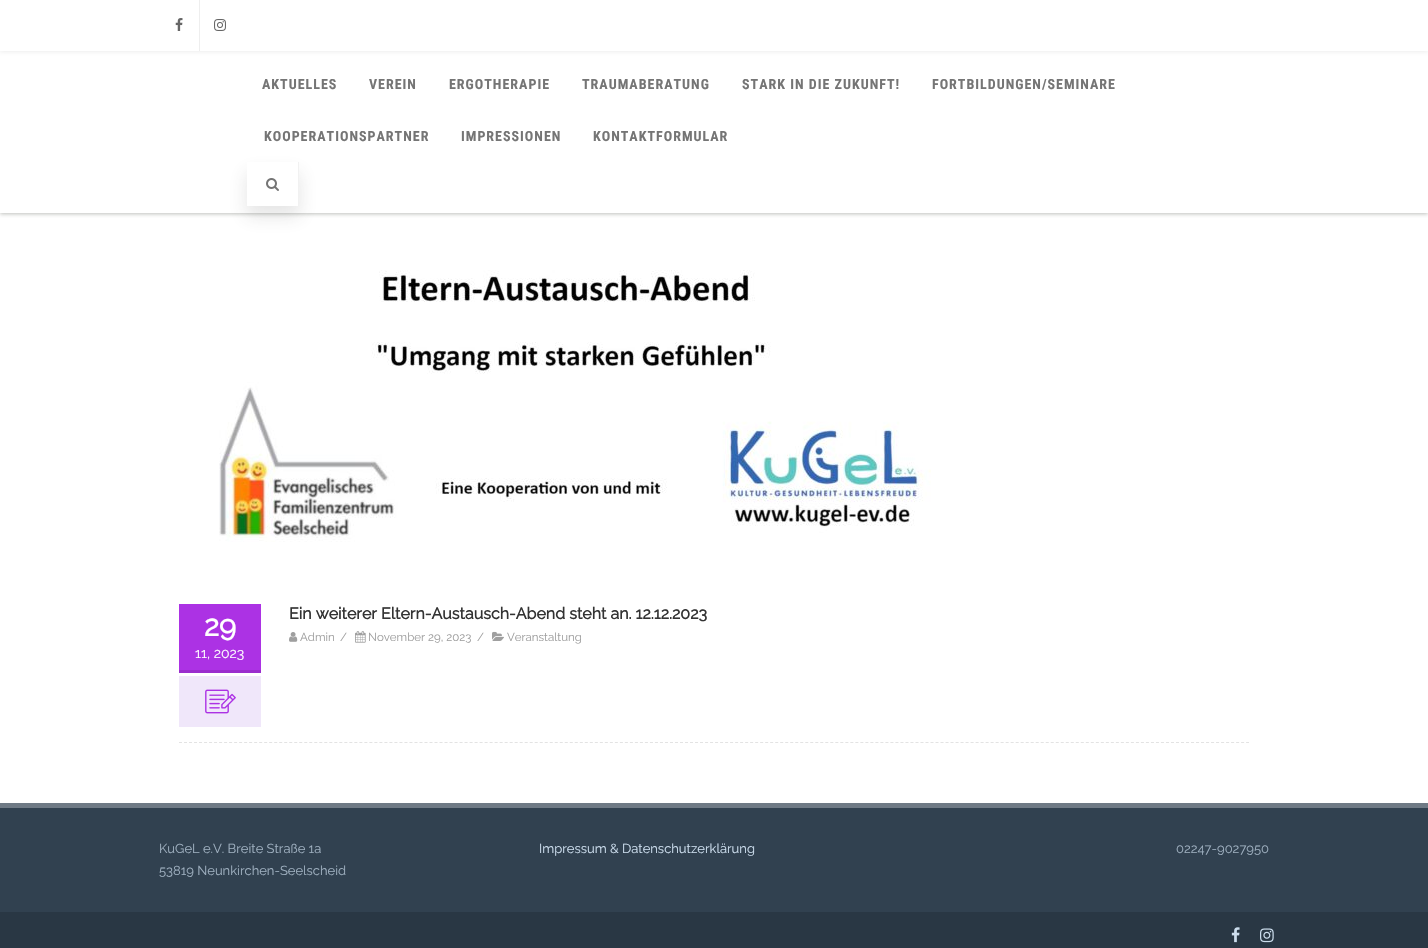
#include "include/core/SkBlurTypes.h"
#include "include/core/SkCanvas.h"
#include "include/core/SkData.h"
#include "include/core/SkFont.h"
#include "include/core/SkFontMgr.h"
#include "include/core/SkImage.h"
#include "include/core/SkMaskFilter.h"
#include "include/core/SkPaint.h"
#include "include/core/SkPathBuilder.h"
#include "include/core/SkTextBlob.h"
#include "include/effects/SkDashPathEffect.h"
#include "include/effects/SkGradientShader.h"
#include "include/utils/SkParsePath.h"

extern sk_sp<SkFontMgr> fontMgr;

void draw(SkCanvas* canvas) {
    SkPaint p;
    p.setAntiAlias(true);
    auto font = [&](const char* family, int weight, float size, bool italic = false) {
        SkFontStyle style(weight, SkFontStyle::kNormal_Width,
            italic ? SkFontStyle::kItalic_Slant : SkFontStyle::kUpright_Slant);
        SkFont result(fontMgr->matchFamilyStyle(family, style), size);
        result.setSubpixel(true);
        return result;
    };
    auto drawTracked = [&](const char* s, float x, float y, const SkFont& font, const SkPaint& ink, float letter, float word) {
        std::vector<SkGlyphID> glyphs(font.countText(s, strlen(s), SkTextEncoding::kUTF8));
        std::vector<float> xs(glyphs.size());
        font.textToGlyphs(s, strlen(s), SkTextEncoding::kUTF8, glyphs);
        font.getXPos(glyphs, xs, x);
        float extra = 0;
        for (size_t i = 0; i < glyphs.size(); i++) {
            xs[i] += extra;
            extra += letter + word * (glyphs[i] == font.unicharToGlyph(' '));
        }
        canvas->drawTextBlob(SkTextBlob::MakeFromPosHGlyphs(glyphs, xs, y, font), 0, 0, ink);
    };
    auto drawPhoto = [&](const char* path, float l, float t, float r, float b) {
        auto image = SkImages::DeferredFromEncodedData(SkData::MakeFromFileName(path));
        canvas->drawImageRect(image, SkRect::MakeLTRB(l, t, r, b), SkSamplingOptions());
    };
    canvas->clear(0xFFFFFFFF);
    canvas->save();
    canvas->clipRect(SkRect::MakeLTRB(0, 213, 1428, 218));
    p.setColor(0xBFA7A9A4);
    p.setMaskFilter(SkMaskFilter::MakeBlur(kNormal_SkBlurStyle, 2));
    canvas->drawRect(SkRect::MakeLTRB(0, 1, 1428, 214), p);
    p.setMaskFilter(nullptr);
    canvas->restore();
    canvas->save();
    canvas->clipRect(SkRect::MakeLTRB(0, 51, 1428, 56));
    p.setColor(0xFFEEEEEE);
    p.setMaskFilter(SkMaskFilter::MakeBlur(kNormal_SkBlurStyle, 2));
    canvas->drawRect(SkRect::MakeLTRB(0, 1, 1428, 52), p);
    p.setMaskFilter(nullptr);
    canvas->restore();
    drawPhoto("media/1.png", 175, 18, 183, 31);
    canvas->drawRect(SkRect::MakeLTRB(199, 0, 200, 51), p);
    drawPhoto("media/2.png", 214, 19, 226, 31);
    auto font1 = font("Roboto Condensed", 700, 14);
    p.setColor(0xFF757575);
    {
        const struct { const char* s; float x, y; } items[] = {
            {"AKTUELLES", 262, 89},
            {"VEREIN", 369, 89},
            {"ERGOTHERAPIE", 449, 89},
            {"TRAUMABERATUNG", 582, 89},
            {"STARK IN DIE ZUKUNFT!", 742, 89},
            {"FORTBILDUNGEN/SEMINARE", 932, 89},
            {"KOOPERATIONSPARTNER", 264, 141},
            {"IMPRESSIONEN", 461, 141},
            {"KONTAKTFORMULAR", 593, 141},
        };
        for (auto [s, x, y] : items) {
            drawTracked(s, x, y, font1, p, 1, 0);
        }
    }
    canvas->save();
    canvas->clipPath(SkPathBuilder(SkPathFillType::kEvenOdd).moveTo(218, 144).lineTo(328, 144).lineTo(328, 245).lineTo(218, 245).close().moveTo(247, 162).lineTo(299, 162).lineTo(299, 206).lineTo(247, 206).close().detach(), true);
    p.setColor(0x21404040);
    p.setMaskFilter(SkMaskFilter::MakeBlur(kNormal_SkBlurStyle, 9));
    canvas->drawRect(SkRect::MakeLTRB(246, 172, 300, 217), p);
    p.setMaskFilter(nullptr);
    canvas->restore();
    p.setColor(0xFFF1F1F1);
    canvas->drawRect(SkRect::MakeLTRB(298, 162, 299, 206), p);
    drawPhoto("media/3.png", 266, 178, 279, 191);
    p.setStyle(SkPaint::kStroke_Style);
    p.setStrokeWidth(1);
    p.setColor(0xFFE3E3E3);
    p.setPathEffect(SkDashPathEffect::Make({{3, 2.01f}}, 0));
    canvas->drawPath(SkPathBuilder().moveTo(179, 742.5f).lineTo(1249, 742.5f).detach(), p);
    p.setPathEffect(nullptr);
    drawPhoto("media/4.png", 219, 270, 931, 542);
    p.setStyle(SkPaint::kFill_Style);
    p.setColor(0xFFAC32E4);
    canvas->drawRect(SkRect::MakeLTRB(179, 604, 261, 670), p);
    p.setColor(0xFF9B2DCD);
    canvas->drawRect(SkRect::MakeLTRB(179, 670, 261, 673), p);
    auto font2 = font("Raleway", 700, 29);
    p.setColor(0xFFFFFFFF);
    canvas->drawString("29", 204, 636, font2, p);
    auto font3 = font("Raleway", 400, 14);
    canvas->drawString("11, 2023", 195, 658, font3, p);
    p.setColor(0xFFF0E7FA);
    canvas->drawRect(SkRect::MakeLTRB(179, 676, 261, 727), p);
    drawPhoto("media/5.png", 205, 689, 236, 714);
    auto font4 = font("Raleway", 700, 16);
    p.setColor(0xFF333333);
    canvas->drawString("Ein weiterer Eltern-Austausch-Abend steht an. 12.12.2023", 289, 619, font4, p);
    drawPhoto("media/6.png", 289, 632, 298, 642);
    auto font5 = font("Raleway", 400, 11.5f);
    p.setColor(0xFF9F9F9F);
    canvas->drawString("Admin", 300, 641, font5, p);
    canvas->drawString("/", 340, 641, font5, p);
    drawPhoto("media/7.png", 355, 631, 366, 643);
    canvas->drawString("November 29, 2023", 368, 641, font5, p);
    canvas->drawString("/", 477, 641, font5, p);
    drawPhoto("media/8.png", 492, 631, 504, 641);
    canvas->drawString("Veranstaltung", 507, 641, font5, p);
    p.setColor(0xFF314150);
    canvas->drawRect(SkRect::MakeLTRB(0, 808, 1428, 912), p);
    p.setColor(0xFF6F7A85);
    canvas->drawRect(SkRect::MakeLTRB(0, 803, 1428, 808), p);
    auto font6 = font("Raleway", 400, 13);
    p.setColor(0xFF9EAFBF);
    canvas->drawString("KuGeL e.V. Breite Straße 1a", 159, 853, font6, p);
    canvas->drawString("53819 Neunkirchen-Seelscheid", 159, 875, font6, p);
    p.setColor(0xFFCDDEEE);
    canvas->drawString("Impressum & Datenschutzerklärung", 539, 853, font6, p);
    p.setColor(0xFF9EAFBF);
    canvas->drawString("02247-9027950", 1176, 853, font6, p);
    p.setColor(0xFF293744);
    canvas->drawRect(SkRect::MakeLTRB(0, 912, 1428, 948), p);
    drawPhoto("media/9.png", 1231, 927, 1240, 943);
    drawPhoto("media/10.png", 1260, 928, 1274, 943);
}
